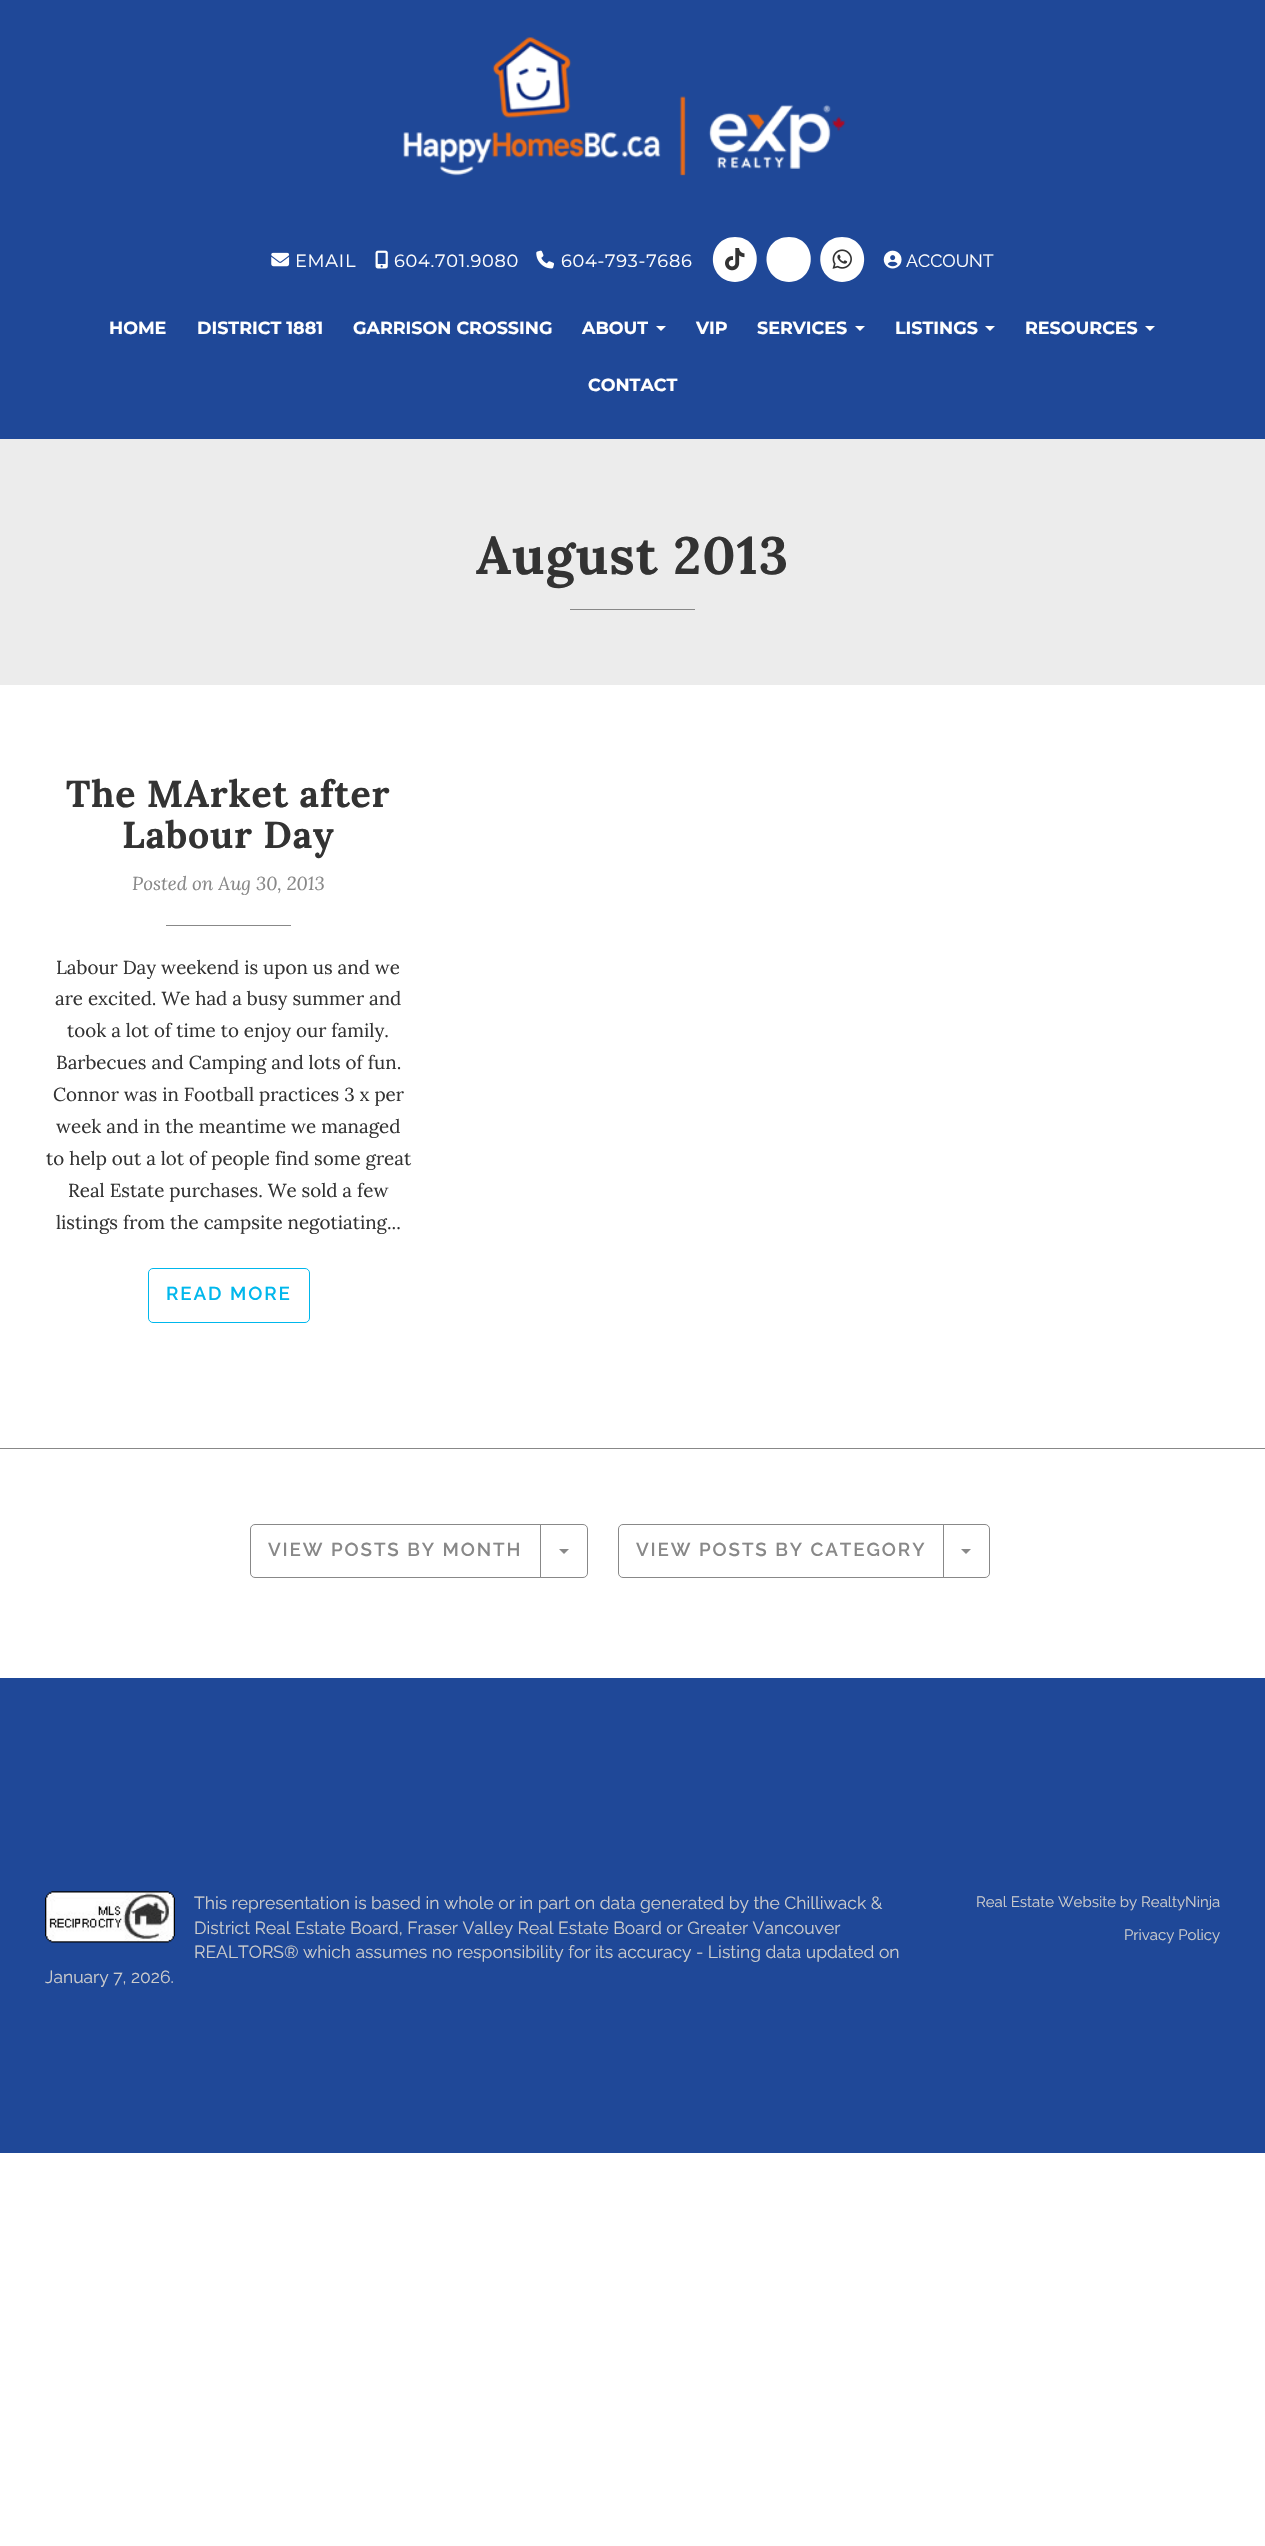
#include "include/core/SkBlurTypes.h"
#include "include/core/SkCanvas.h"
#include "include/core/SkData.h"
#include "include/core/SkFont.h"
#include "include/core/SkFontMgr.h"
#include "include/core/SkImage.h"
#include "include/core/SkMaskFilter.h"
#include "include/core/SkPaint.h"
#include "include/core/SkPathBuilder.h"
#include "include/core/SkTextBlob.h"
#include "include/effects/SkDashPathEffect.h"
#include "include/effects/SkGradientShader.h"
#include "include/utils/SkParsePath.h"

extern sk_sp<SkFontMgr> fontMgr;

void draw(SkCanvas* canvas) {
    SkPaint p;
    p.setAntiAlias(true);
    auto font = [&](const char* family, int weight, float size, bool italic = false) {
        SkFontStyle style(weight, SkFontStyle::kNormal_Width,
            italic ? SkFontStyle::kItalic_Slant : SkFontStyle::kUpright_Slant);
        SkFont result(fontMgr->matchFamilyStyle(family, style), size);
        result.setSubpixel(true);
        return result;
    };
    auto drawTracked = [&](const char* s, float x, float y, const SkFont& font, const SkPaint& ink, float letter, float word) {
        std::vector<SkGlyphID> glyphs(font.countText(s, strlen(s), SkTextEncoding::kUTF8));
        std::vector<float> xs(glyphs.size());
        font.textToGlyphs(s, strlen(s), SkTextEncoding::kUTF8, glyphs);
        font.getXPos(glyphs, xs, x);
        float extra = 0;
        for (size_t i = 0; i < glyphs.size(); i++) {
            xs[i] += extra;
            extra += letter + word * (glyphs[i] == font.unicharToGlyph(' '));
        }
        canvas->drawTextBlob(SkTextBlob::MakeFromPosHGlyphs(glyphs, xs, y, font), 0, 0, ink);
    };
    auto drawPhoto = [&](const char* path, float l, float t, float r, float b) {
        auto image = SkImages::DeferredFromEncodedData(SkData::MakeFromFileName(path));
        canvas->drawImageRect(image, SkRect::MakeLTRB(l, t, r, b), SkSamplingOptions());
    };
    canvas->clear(0xFFFFFFFF);
    p.setColor(0xFF1F4898);
    canvas->drawRect(SkRect::MakeLTRB(0, 0, 1265, 439), p);
    drawPhoto("media/1.png", 403, 37, 846, 176);
    drawPhoto("media/2.png", 271, 252, 290, 267);
    auto font1 = font("Montserrat", 400, 17.75f);
    p.setColor(0xFFFFFFFF);
    drawTracked("EMAIL", 295, 267, font1, p, 0.75f, 0);
    drawPhoto("media/3.png", 375, 250, 388, 269);
    drawTracked("604.701.9080", 394, 267, font1, p, 0.75f, 0);
    drawPhoto("media/4.png", 536, 250, 554, 269);
    drawTracked("604-793-7686", 561, 267, font1, p, 0.75f, 0);
    canvas->drawPath(SkPathBuilder().moveTo(735, 282).cubicTo(764, 281, 764, 237, 735, 237).cubicTo(706, 237, 705, 281, 735, 282).close().detach(), p);
    drawPhoto("media/5.png", 725, 248, 745, 271);
    canvas->drawPath(SkPathBuilder().moveTo(789, 282).cubicTo(818, 281, 818, 237, 789, 237).cubicTo(759, 237, 759, 281, 789, 282).close().detach(), p);
    canvas->drawPath(SkPathBuilder().moveTo(842, 282).cubicTo(872, 281, 871, 237, 842, 237).cubicTo(813, 237, 813, 281, 842, 282).close().detach(), p);
    drawPhoto("media/6.png", 832, 249, 852, 269);
    drawPhoto("media/7.png", 883, 250, 902, 269);
    auto font2 = font("Raleway", 400, 17.75f);
    canvas->drawString("ACCOUNT", 906, 267, font2, p);
    auto font3 = font("Montserrat", 700, 17.5f);
    {
        const struct { const char* s; float x, y; } items[] = {
            {"HOME", 109, 334},
            {"DISTRICT 1881", 197, 334},
            {"GARRISON CROSSING", 353, 334},
            {"ABOUT", 582, 334},
        };
        for (auto [s, x, y] : items) {
            canvas->drawString(s, x, y, font3, p);
        }
    }
    canvas->drawPath(SkPathBuilder().moveTo(656, 326).lineTo(666, 326).lineTo(661, 331).close().detach(), p);
    canvas->drawString("VIP", 696, 334, font3, p);
    canvas->drawString("SERVICES", 757, 334, font3, p);
    canvas->drawPath(SkPathBuilder().moveTo(855, 326).lineTo(865, 326).lineTo(860, 331).close().detach(), p);
    canvas->drawString("LISTINGS", 895, 334, font3, p);
    canvas->drawPath(SkPathBuilder().moveTo(985, 326).lineTo(995, 326).lineTo(990, 331).close().detach(), p);
    canvas->drawString("RESOURCES", 1025, 334, font3, p);
    canvas->drawPath(SkPathBuilder().moveTo(1145, 326).lineTo(1155, 326).lineTo(1150, 331).close().detach(), p);
    canvas->drawString("CONTACT", 588, 391, font3, p);
    p.setColor(0xFFECECEC);
    canvas->drawRect(SkRect::MakeLTRB(0, 439, 1265, 685), p);
    auto font4 = font("Lora", 700, 52.5f);
    p.setColor(0xFF333333);
    drawTracked("August 2013", 476, 574, font4, p, 1, 0);
    p.setColor(0xFF888888);
    canvas->drawRect(SkRect::MakeLTRB(570, 609, 695, 610), p);
    auto font5 = font("Lora", 700, 37.5f);
    p.setColor(0xFF333333);
    drawTracked("The MArket after", 66, 807, font5, p, 0.75f, 0);
    drawTracked("Labour Day", 122, 848, font5, p, 0.75f, 0);
    auto font6 = font("Lora", 400, 18.75f, true);
    p.setColor(0xFF888888);
    canvas->drawString("Posted on Aug 30, 2013", 132, 890, font6, p);
    canvas->drawRect(SkRect::MakeLTRB(166, 925, 291, 926), p);
    auto font7 = font("Lora", 400, 18.75f);
    p.setColor(0xFF333333);
    {
        const struct { const char* s; float x, y; } items[] = {
            {"Labour Day weekend is upon us and we", 56, 974},
            {"are excited. We had a busy summer and", 55, 1005},
            {"took a lot of time to enjoy our family.", 67, 1037},
            {"Barbecues and Camping and lots of fun.", 56, 1069},
            {"Connor was in Football practices 3 x per", 53, 1101},
            {"week and in the meantime we managed", 56, 1133},
            {"to help out a lot of people find some great", 46, 1165},
            {"Real Estate purchases. We sold a few", 68, 1197},
            {"listings from the campsite negotiating...", 56, 1229},
        };
        for (auto [s, x, y] : items) {
            canvas->drawString(s, x, y, font7, p);
        }
    }
    p.setStyle(SkPaint::kStroke_Style);
    p.setStrokeWidth(1);
    p.setColor(0xFF00B7EC);
    canvas->drawRoundRect(SkRect::MakeLTRB(148.5f, 1268.5f, 309.5f, 1322.5f), 4.5f, 4.5f, p);
    auto font8 = font("Raleway", 600, 18.75f);
    p.setStyle(SkPaint::kFill_Style);
    drawTracked("READ MORE", 166, 1300, font8, p, 1.9f, 0);
    p.setColor(0xFF888888);
    canvas->drawRect(SkRect::MakeLTRB(0, 1448, 1265, 1449), p);
    p.setStyle(SkPaint::kStroke_Style);
    canvas->drawPath(SkPathBuilder().moveTo(255, 1524.5f).lineTo(540.5f, 1524.5f).lineTo(540.5f, 1577.5f).lineTo(255, 1577.5f).cubicTo(252.5f, 1577.5f, 250.5f, 1575.5f, 250.5f, 1573).lineTo(250.5f, 1529).cubicTo(250.5f, 1526.5f, 252.5f, 1524.5f, 255, 1524.5f).close().detach(), p);
    p.setStyle(SkPaint::kFill_Style);
    drawTracked("VIEW POSTS BY MONTH", 268, 1556, font8, p, 1.9f, 0);
    p.setStyle(SkPaint::kStroke_Style);
    canvas->drawPath(SkPathBuilder().moveTo(540.5f, 1524.5f).lineTo(583, 1524.5f).cubicTo(585.5f, 1524.5f, 587.5f, 1526.5f, 587.5f, 1529).lineTo(587.5f, 1573).cubicTo(587.5f, 1575.5f, 585.5f, 1577.5f, 583, 1577.5f).lineTo(540.5f, 1577.5f).close().detach(), p);
    p.setStyle(SkPaint::kFill_Style);
    canvas->drawPath(SkPathBuilder().moveTo(559, 1549).lineTo(569, 1549).lineTo(564, 1554).close().detach(), p);
    p.setStyle(SkPaint::kStroke_Style);
    canvas->drawPath(SkPathBuilder().moveTo(623, 1524.5f).lineTo(943.5f, 1524.5f).lineTo(943.5f, 1577.5f).lineTo(623, 1577.5f).cubicTo(620.5f, 1577.5f, 618.5f, 1575.5f, 618.5f, 1573).lineTo(618.5f, 1529).cubicTo(618.5f, 1526.5f, 620.5f, 1524.5f, 623, 1524.5f).close().detach(), p);
    p.setStyle(SkPaint::kFill_Style);
    drawTracked("VIEW POSTS BY CATEGORY", 636, 1556, font8, p, 1.9f, 0);
    p.setStyle(SkPaint::kStroke_Style);
    canvas->drawPath(SkPathBuilder().moveTo(943.5f, 1524.5f).lineTo(985, 1524.5f).cubicTo(987.5f, 1524.5f, 989.5f, 1526.5f, 989.5f, 1529).lineTo(989.5f, 1573).cubicTo(989.5f, 1575.5f, 987.5f, 1577.5f, 985, 1577.5f).lineTo(943.5f, 1577.5f).close().detach(), p);
    p.setStyle(SkPaint::kFill_Style);
    canvas->drawPath(SkPathBuilder().moveTo(961, 1549).lineTo(971, 1549).lineTo(966, 1554).close().detach(), p);
    p.setColor(0xFF1F4898);
    canvas->drawRect(SkRect::MakeLTRB(0, 1678, 1265, 2153), p);
    drawPhoto("media/8.png", 45, 1891, 175, 1943);
    auto font9 = font("Raleway", 400, 17.5f);
    p.setColor(0xFFCCCCCC);
    {
        const struct { const char* s; float x, y; } items[] = {
            {"This representation is based in whole or in part on data generated by the Chilliwack &", 194, 1909},
            {"District Real Estate Board, Fraser Valley Real Estate Board or Greater Vancouver", 194, 1934},
            {"REALTORS® which assumes no responsibility for its accuracy - Listing data updated on", 194, 1958},
            {"January 7, 2026.", 45, 1983},
        };
        for (auto [s, x, y] : items) {
            canvas->drawString(s, x, y, font9, p);
        }
    }
    auto font10 = font("Raleway", 400, 15);
    canvas->drawString("Real Estate Website by RealtyNinja", 976, 1907, font10, p);
    canvas->drawString("Privacy Policy", 1124, 1940, font10, p);
}
